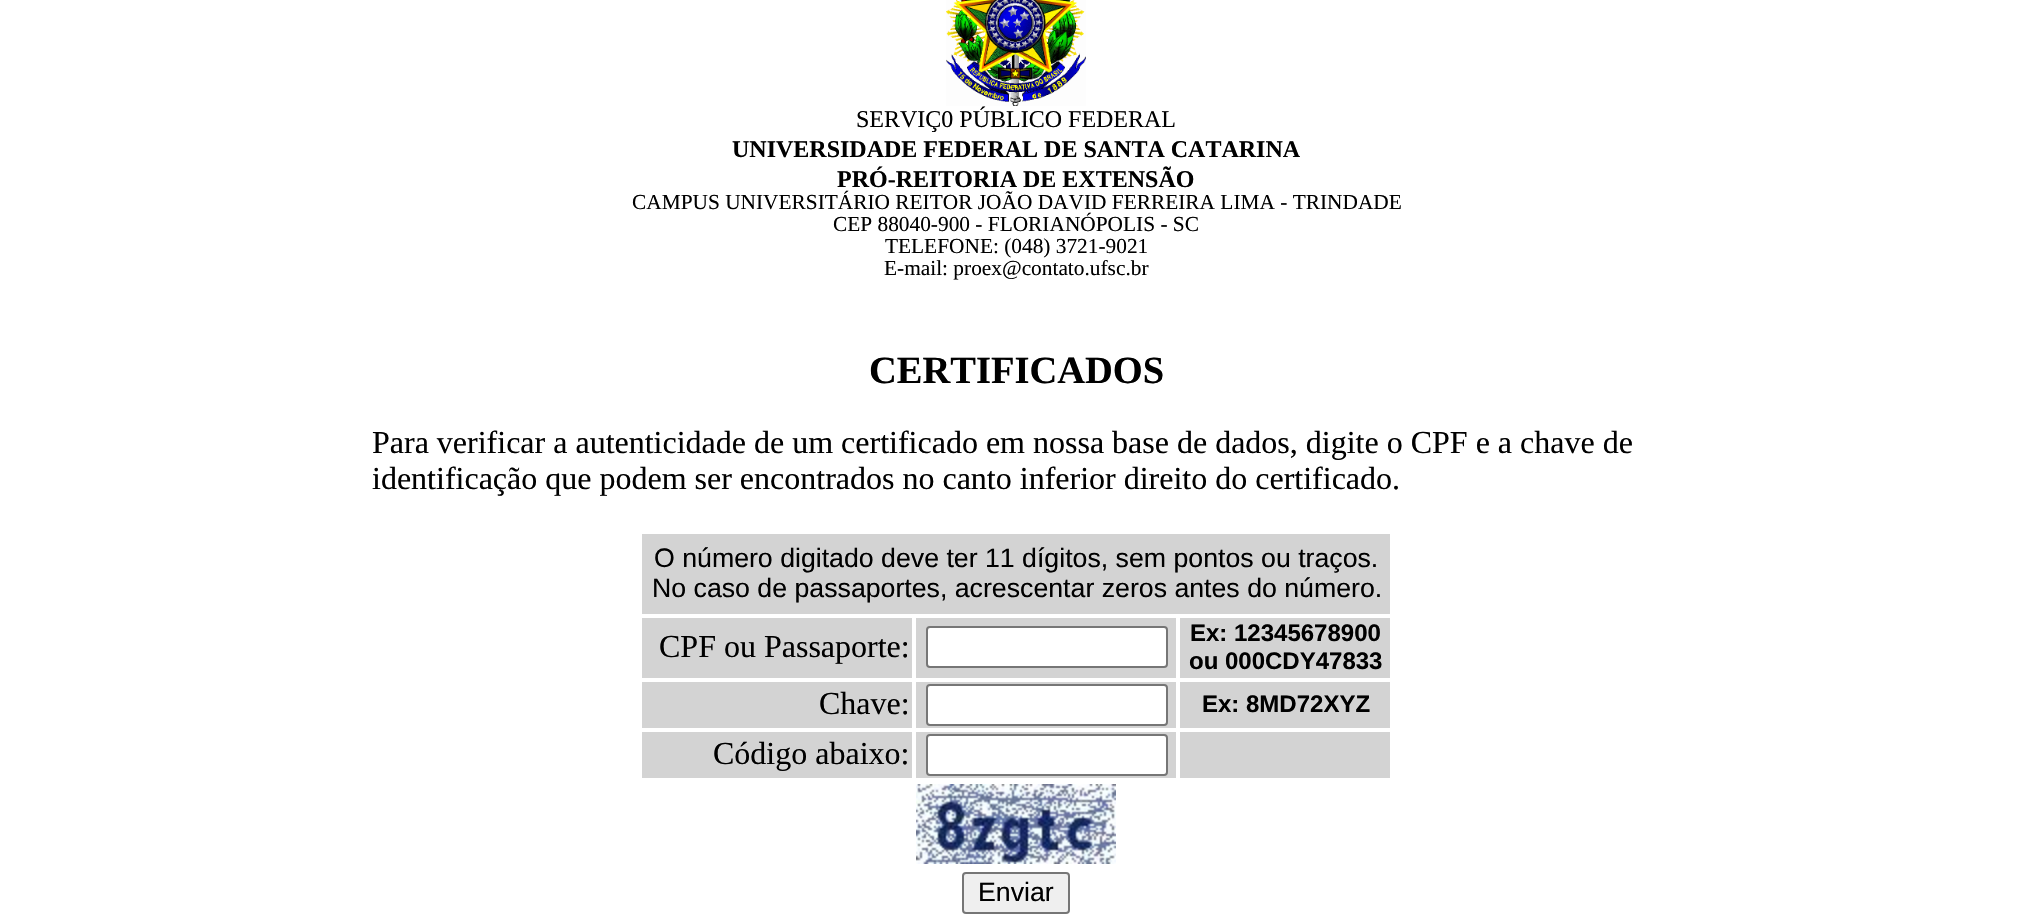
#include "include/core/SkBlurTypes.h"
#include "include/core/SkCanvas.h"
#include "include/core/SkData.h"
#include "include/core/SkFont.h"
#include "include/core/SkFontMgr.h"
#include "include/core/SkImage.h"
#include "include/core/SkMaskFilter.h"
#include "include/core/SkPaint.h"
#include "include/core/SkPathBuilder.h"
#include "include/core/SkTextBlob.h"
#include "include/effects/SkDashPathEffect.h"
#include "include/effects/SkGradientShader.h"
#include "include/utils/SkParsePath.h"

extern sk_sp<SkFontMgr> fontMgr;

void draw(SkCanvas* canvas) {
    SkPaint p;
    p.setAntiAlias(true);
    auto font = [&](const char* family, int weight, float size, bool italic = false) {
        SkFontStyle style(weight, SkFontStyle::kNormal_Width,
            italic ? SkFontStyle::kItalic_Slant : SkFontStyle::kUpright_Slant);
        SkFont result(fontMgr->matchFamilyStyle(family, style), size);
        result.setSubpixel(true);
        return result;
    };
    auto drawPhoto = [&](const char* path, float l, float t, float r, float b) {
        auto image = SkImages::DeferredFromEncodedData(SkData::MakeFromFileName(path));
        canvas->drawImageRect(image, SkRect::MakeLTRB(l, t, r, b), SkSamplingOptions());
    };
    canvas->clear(0xFFFFFFFF);
    drawPhoto("media/1.png", 946, 0, 1086, 106);
    auto font1 = font("Liberation Serif", 400, 24);
    p.setColor(0xFF000000);
    canvas->drawString("SERVIÇ0 PÚBLICO FEDERAL", 856, 127, font1, p);
    auto font2 = font("Liberation Serif", 700, 24);
    canvas->drawString("UNIVERSIDADE FEDERAL DE SANTA CATARINA", 732, 157, font2, p);
    canvas->drawString("PRÓ-REITORIA DE EXTENSÃO", 837, 187, font2, p);
    auto font3 = font("Liberation Serif", 400, 21.35f);
    {
        const struct { const char* s; float x, y; } items[] = {
            {"CAMPUS UNIVERSITÁRIO REITOR JOÃO DAVID FERREIRA LIMA - TRINDADE", 632, 209},
            {"CEP 88040-900 - FLORIANÓPOLIS - SC", 833, 231},
            {"TELEFONE: (048) 3721-9021", 885, 253},
            {"E-mail: proex@contato.ufsc.br", 884, 275},
        };
        for (auto [s, x, y] : items) {
            canvas->drawString(s, x, y, font3, p);
        }
    }
    auto font4 = font("Liberation Serif", 700, 38.5f);
    canvas->drawString("CERTIFICADOS", 869, 383, font4, p);
    auto font5 = font("Liberation Serif", 400, 32);
    canvas->drawString("Para verificar a autenticidade de um certificado em nossa base de dados, digite o CPF e a chave de", 372, 453, font5, p);
    canvas->drawString("identificação que podem ser encontrados no canto inferior direito do certificado.", 372, 489, font5, p);
    p.setColor(0xFFD3D3D3);
    canvas->drawRect(SkRect::MakeLTRB(642, 534, 1390, 614), p);
    auto font6 = font("Liberation Sans", 400, 26.7f);
    p.setColor(0xFF000000);
    canvas->drawString("O número digitado deve ter 11 dígitos, sem pontos ou traços.", 654, 567, font6, p);
    canvas->drawString("No caso de passaportes, acrescentar zeros antes do número.", 652, 597, font6, p);
    p.setColor(0xFFD3D3D3);
    canvas->drawRect(SkRect::MakeLTRB(642, 618, 912, 678), p);
    p.setColor(0xFF000000);
    canvas->drawString("CPF ou Passaporte:", 659, 657, font5, p);
    p.setColor(0xFFD3D3D3);
    canvas->drawRect(SkRect::MakeLTRB(916, 618, 1176, 678), p);
    p.setColor(0xFFFFFFFF);
    canvas->drawRoundRect(SkRect::MakeLTRB(927, 627, 1167, 667), 3, 3, p);
    p.setStyle(SkPaint::kStroke_Style);
    p.setStrokeWidth(2);
    p.setColor(0xFF767676);
    canvas->drawRoundRect(SkRect::MakeLTRB(927, 627, 1167, 667), 3, 3, p);
    p.setStyle(SkPaint::kFill_Style);
    p.setColor(0xFFD3D3D3);
    canvas->drawRect(SkRect::MakeLTRB(1180, 618, 1390, 678), p);
    auto font7 = font("Liberation Sans", 700, 24);
    p.setColor(0xFF000000);
    canvas->drawString("Ex: 12345678900", 1190, 641, font7, p);
    canvas->drawString("ou 000CDY47833", 1189, 669, font7, p);
    p.setColor(0xFFD3D3D3);
    canvas->drawRect(SkRect::MakeLTRB(642, 682, 912, 728), p);
    p.setColor(0xFF000000);
    canvas->drawString("Chave:", 819, 714, font5, p);
    p.setColor(0xFFD3D3D3);
    canvas->drawRect(SkRect::MakeLTRB(916, 682, 1176, 728), p);
    p.setColor(0xFFFFFFFF);
    canvas->drawRoundRect(SkRect::MakeLTRB(927, 685, 1167, 725), 3, 3, p);
    p.setStyle(SkPaint::kStroke_Style);
    p.setColor(0xFF767676);
    canvas->drawRoundRect(SkRect::MakeLTRB(927, 685, 1167, 725), 3, 3, p);
    p.setStyle(SkPaint::kFill_Style);
    p.setColor(0xFFD3D3D3);
    canvas->drawRect(SkRect::MakeLTRB(1180, 682, 1390, 728), p);
    p.setColor(0xFF000000);
    canvas->drawString("Ex: 8MD72XYZ", 1202, 712, font7, p);
    p.setColor(0xFFD3D3D3);
    canvas->drawRect(SkRect::MakeLTRB(642, 732, 912, 778), p);
    p.setColor(0xFF000000);
    canvas->drawString("Código abaixo:", 713, 764, font5, p);
    p.setColor(0xFFD3D3D3);
    canvas->drawRect(SkRect::MakeLTRB(916, 732, 1176, 778), p);
    p.setColor(0xFFFFFFFF);
    canvas->drawRoundRect(SkRect::MakeLTRB(927, 735, 1167, 775), 3, 3, p);
    p.setStyle(SkPaint::kStroke_Style);
    p.setColor(0xFF767676);
    canvas->drawRoundRect(SkRect::MakeLTRB(927, 735, 1167, 775), 3, 3, p);
    p.setStyle(SkPaint::kFill_Style);
    p.setColor(0xFFD3D3D3);
    canvas->drawRect(SkRect::MakeLTRB(1180, 732, 1390, 778), p);
    drawPhoto("media/2.png", 916, 784, 1116, 864);
    p.setColor(0xFFEFEFEF);
    canvas->drawRoundRect(SkRect::MakeLTRB(963, 873, 1069, 913), 3, 3, p);
    p.setStyle(SkPaint::kStroke_Style);
    p.setColor(0xFF767676);
    canvas->drawRoundRect(SkRect::MakeLTRB(963, 873, 1069, 913), 3, 3, p);
    p.setStyle(SkPaint::kFill_Style);
    p.setColor(0xFF000000);
    canvas->drawString("Enviar", 978, 901, font6, p);
}
